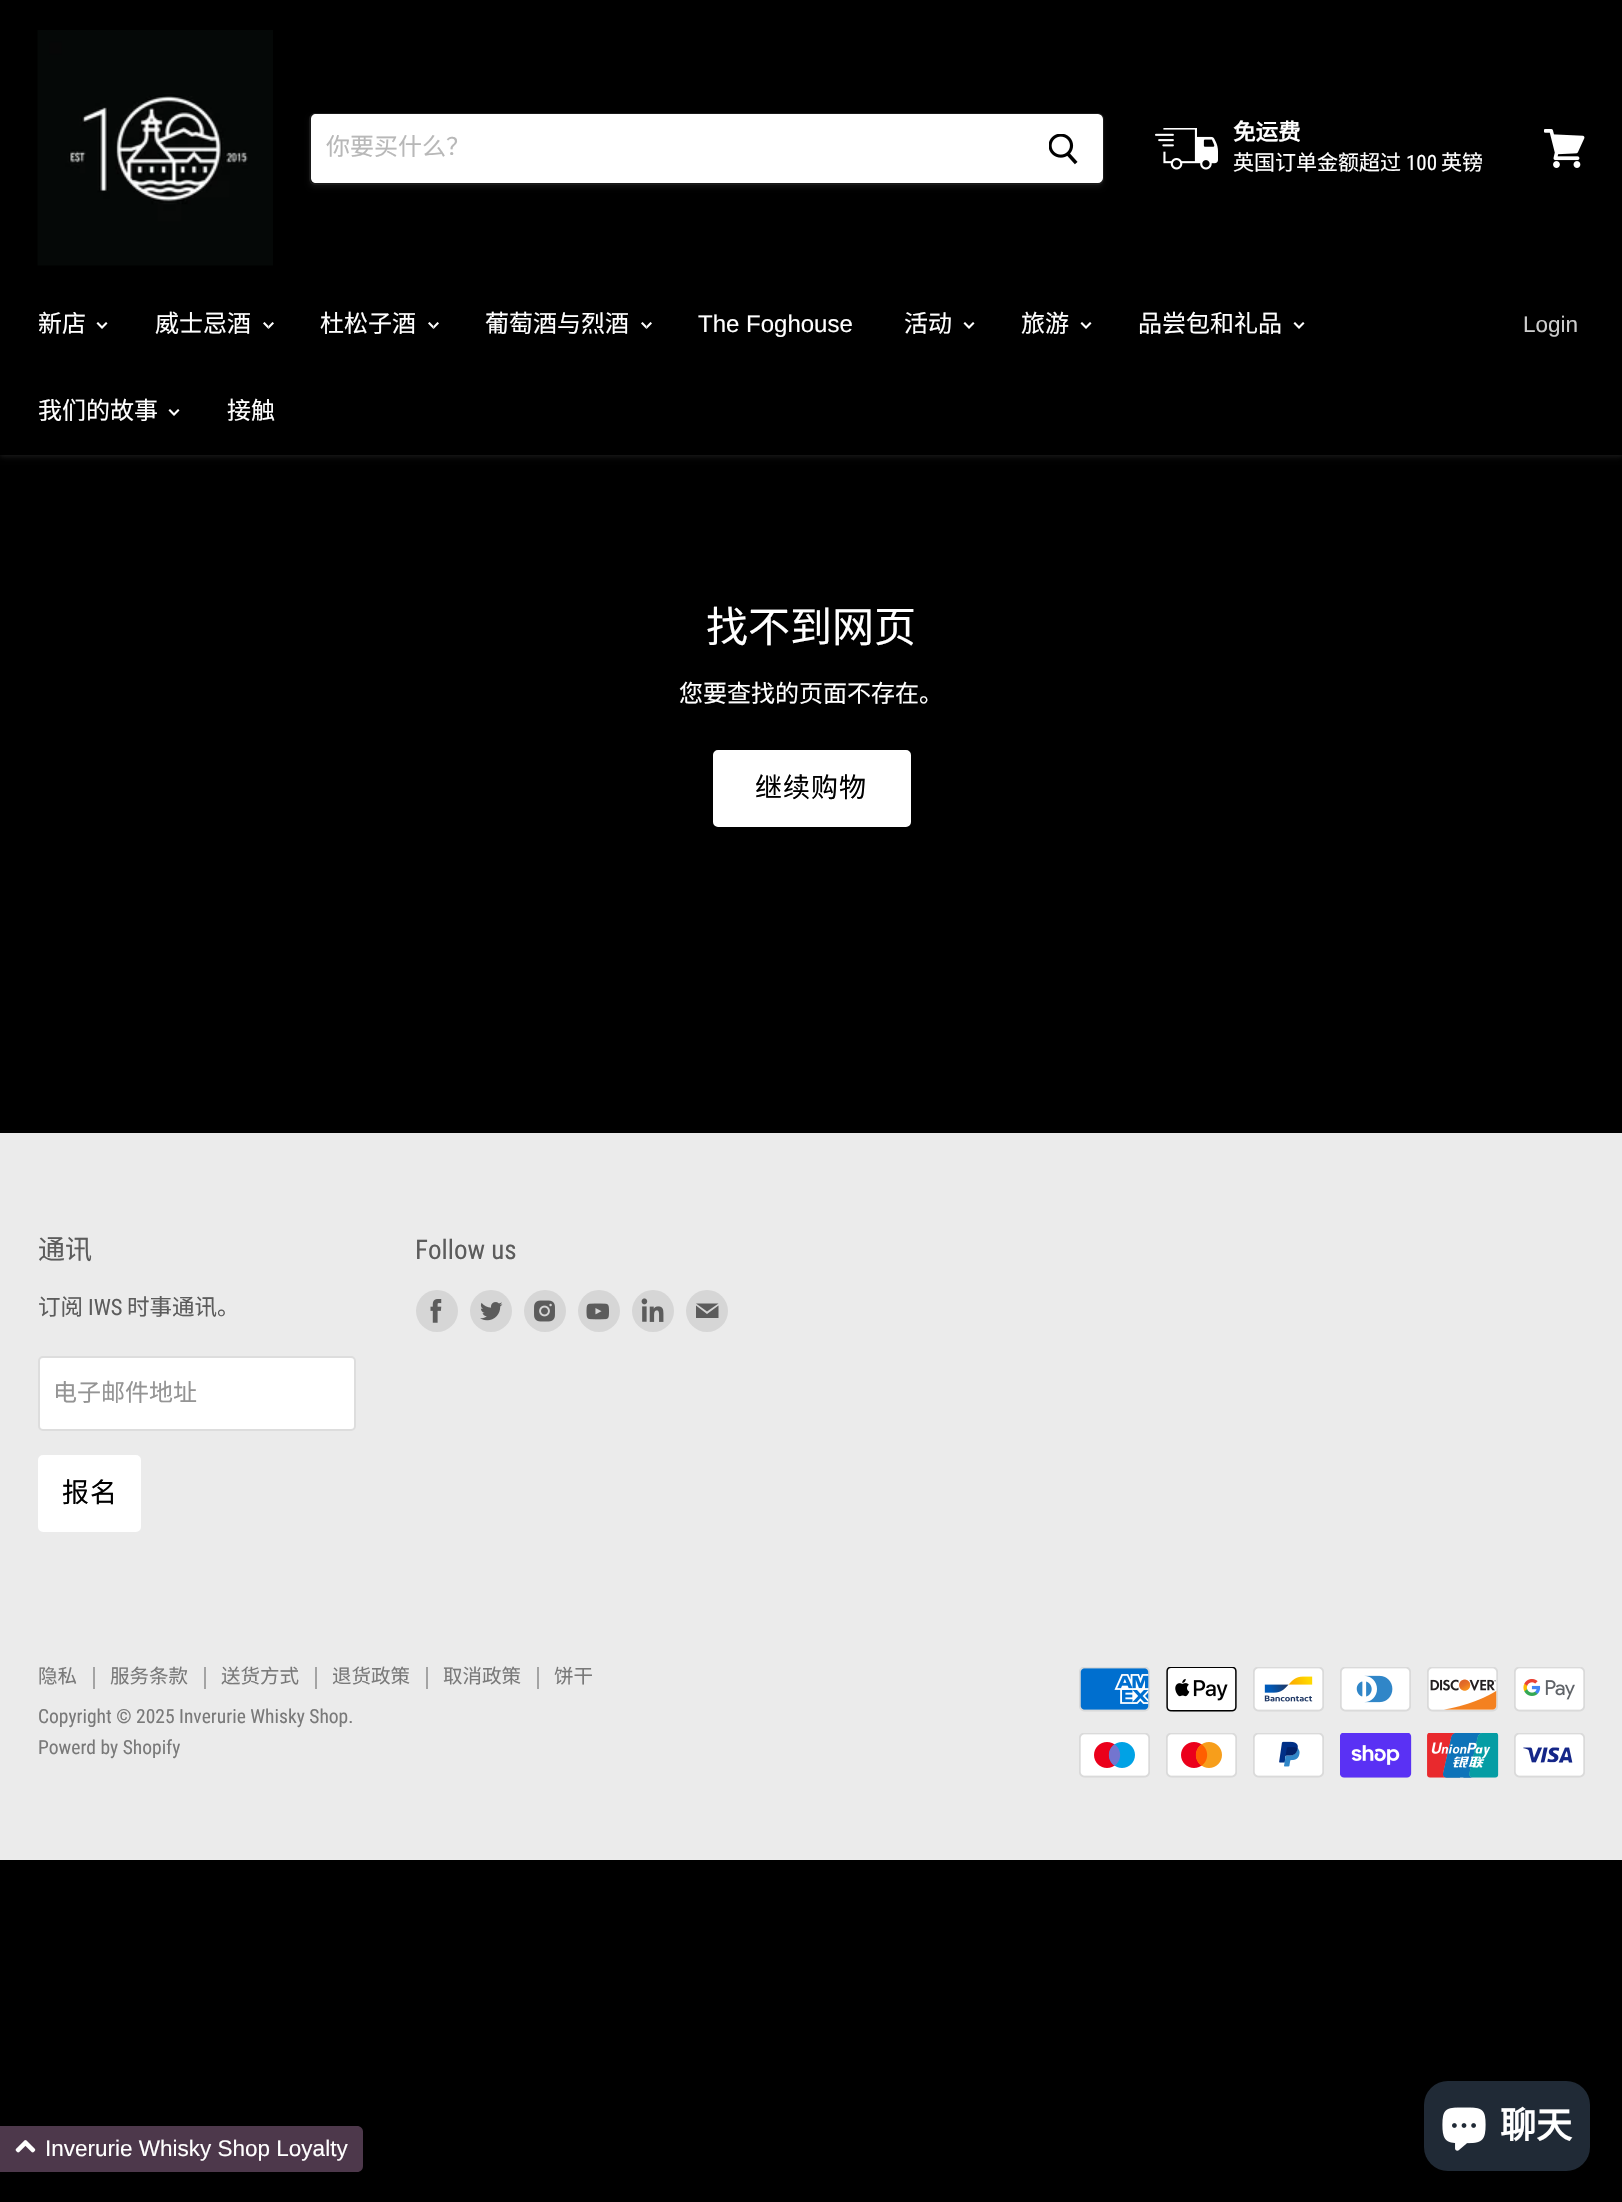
#include "include/core/SkBlurTypes.h"
#include "include/core/SkCanvas.h"
#include "include/core/SkData.h"
#include "include/core/SkFont.h"
#include "include/core/SkFontMgr.h"
#include "include/core/SkImage.h"
#include "include/core/SkMaskFilter.h"
#include "include/core/SkPaint.h"
#include "include/core/SkPathBuilder.h"
#include "include/core/SkTextBlob.h"
#include "include/effects/SkDashPathEffect.h"
#include "include/effects/SkGradientShader.h"
#include "include/utils/SkParsePath.h"

extern sk_sp<SkFontMgr> fontMgr;

void draw(SkCanvas* canvas) {
    SkPaint p;
    p.setAntiAlias(true);
    auto font = [&](const char* family, int weight, float size, bool italic = false) {
        SkFontStyle style(weight, SkFontStyle::kNormal_Width,
            italic ? SkFontStyle::kItalic_Slant : SkFontStyle::kUpright_Slant);
        SkFont result(fontMgr->matchFamilyStyle(family, style), size);
        result.setSubpixel(true);
        return result;
    };
    auto drawTracked = [&](const char* s, float x, float y, const SkFont& font, const SkPaint& ink, float letter, float word) {
        std::vector<SkGlyphID> glyphs(font.countText(s, strlen(s), SkTextEncoding::kUTF8));
        std::vector<float> xs(glyphs.size());
        font.textToGlyphs(s, strlen(s), SkTextEncoding::kUTF8, glyphs);
        font.getXPos(glyphs, xs, x);
        float extra = 0;
        for (size_t i = 0; i < glyphs.size(); i++) {
            xs[i] += extra;
            extra += letter + word * (glyphs[i] == font.unicharToGlyph(' '));
        }
        canvas->drawTextBlob(SkTextBlob::MakeFromPosHGlyphs(glyphs, xs, y, font), 0, 0, ink);
    };
    auto drawPhoto = [&](const char* path, float l, float t, float r, float b) {
        auto image = SkImages::DeferredFromEncodedData(SkData::MakeFromFileName(path));
        canvas->drawImageRect(image, SkRect::MakeLTRB(l, t, r, b), SkSamplingOptions());
    };
    canvas->clear(0xFF000000);
    p.setColor(0x407F7F7F);
    p.setMaskFilter(SkMaskFilter::MakeBlur(kNormal_SkBlurStyle, 3));
    canvas->drawRect(SkRect::MakeLTRB(0, 2, 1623, 456), p);
    p.setMaskFilter(nullptr);
    p.setColor(0xFF000000);
    canvas->drawRect(SkRect::MakeLTRB(0, 0, 1622, 455), p);
    drawPhoto("media/1.png", 37, 30, 273, 266);
    canvas->save();
    canvas->clipPath(SkPathBuilder(SkPathFillType::kEvenOdd).moveTo(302, 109).lineTo(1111, 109).lineTo(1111, 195).lineTo(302, 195).close().moveTo(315, 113).lineTo(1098, 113).cubicTo(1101.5f, 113, 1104, 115.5f, 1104, 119).lineTo(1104, 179).cubicTo(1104, 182.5f, 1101.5f, 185, 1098, 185).lineTo(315, 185).cubicTo(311.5f, 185, 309, 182.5f, 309, 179).lineTo(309, 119).cubicTo(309, 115.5f, 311.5f, 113, 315, 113).close().detach(), true);
    p.setColor(0x1C7F7F7F);
    p.setMaskFilter(SkMaskFilter::MakeBlur(kNormal_SkBlurStyle, 2));
    canvas->drawRoundRect(SkRect::MakeLTRB(309, 116, 1104, 188), 6, 6, p);
    p.setMaskFilter(nullptr);
    canvas->restore();
    p.setStyle(SkPaint::kStroke_Style);
    p.setStrokeWidth(2);
    p.setColor(0x337F7F7F);
    canvas->drawRoundRect(SkRect::MakeLTRB(310, 114, 1103, 184), 5, 5, p);
    p.setStyle(SkPaint::kFill_Style);
    p.setColor(0xFFFFFFFF);
    canvas->drawPath(SkPathBuilder().moveTo(316, 114).lineTo(1023, 114).lineTo(1023, 183).lineTo(316, 183).cubicTo(313, 183, 311, 181, 311, 178).lineTo(311, 119).cubicTo(311, 116, 313, 114, 316, 114).close().detach(), p);
    auto font1 = font("Noto Sans CJK SC", 400, 24);
    p.setColor(0xFFB8B8B8);
    canvas->drawString("你要买什么？", 326, 155, font1, p);
    p.setColor(0xFFFFFFFF);
    canvas->drawPath(SkPathBuilder().moveTo(1024, 115).lineTo(1098, 115).cubicTo(1100, 115, 1102, 117, 1102, 119).lineTo(1102, 178).cubicTo(1102, 180, 1100, 182, 1098, 182).lineTo(1024, 182).close().detach(), p);
    p.setStyle(SkPaint::kStroke_Style);
    canvas->drawPath(SkPathBuilder().moveTo(1024, 115).lineTo(1098, 115).cubicTo(1100, 115, 1102, 117, 1102, 119).lineTo(1102, 178).cubicTo(1102, 180, 1100, 182, 1098, 182).lineTo(1024, 182).close().detach(), p);
    drawPhoto("media/2.png", 1049, 134, 1078, 165);
    drawPhoto("media/3.png", 1155, 128, 1218, 170);
    auto font2 = font("Noto Sans CJK SC", 700, 22.5f);
    p.setStyle(SkPaint::kFill_Style);
    canvas->drawString("免运费", 1233, 140, font2, p);
    auto font3 = font("Noto Sans CJK SC", 400, 21);
    canvas->drawString("英国订单金额超过", 1233, 170, font3, p);
    auto font4 = font("Roboto Condensed", 400, 21);
    canvas->drawString("100", 1406, 170, font4, p);
    canvas->drawString("英镑", 1441, 170, font3, p);
    drawPhoto("media/4.png", 1544, 129, 1585, 168);
    canvas->drawString("新店", 38, 332, font1, p);
    drawPhoto("media/5.png", 96, 322, 108, 329);
    canvas->drawString("威士忌酒", 155, 332, font1, p);
    drawPhoto("media/6.png", 263, 322, 274, 329);
    canvas->drawString("杜松子酒", 320, 332, font1, p);
    drawPhoto("media/6.png", 428, 322, 439, 329);
    canvas->drawString("葡萄酒与烈酒", 485, 332, font1, p);
    drawPhoto("media/6.png", 641, 322, 652, 329);
    auto font5 = font("Liberation Sans", 400, 24);
    canvas->drawString("The Foghouse", 698, 332, font5, p);
    canvas->drawString("活动", 904, 332, font1, p);
    drawPhoto("media/5.png", 963, 322, 975, 329);
    canvas->drawString("旅游", 1021, 332, font1, p);
    drawPhoto("media/5.png", 1080, 322, 1092, 329);
    canvas->drawString("品尝包和礼品", 1138, 332, font1, p);
    drawPhoto("media/5.png", 1293, 322, 1305, 329);
    canvas->drawString("我们的故事", 38, 419, font1, p);
    drawPhoto("media/5.png", 168, 409, 180, 416);
    canvas->drawString("接触", 227, 419, font1, p);
    auto font6 = font("Liberation Sans", 400, 22.5f);
    p.setColor(0xFFCCCCCC);
    canvas->drawString("Login", 1523, 332, font6, p);
    auto font7 = font("Noto Sans CJK SC", 400, 42);
    p.setColor(0xFFFFFFFF);
    canvas->drawString("找不到网页", 706, 642, font7, p);
    canvas->drawString("您要查找的页面不存在。", 679, 702, font1, p);
    canvas->drawRoundRect(SkRect::MakeLTRB(714, 751, 910, 826), 4, 4, p);
    p.setStyle(SkPaint::kStroke_Style);
    canvas->drawRoundRect(SkRect::MakeLTRB(714, 751, 910, 826), 4, 4, p);
    auto font8 = font("Noto Sans CJK SC", 400, 27);
    p.setStyle(SkPaint::kFill_Style);
    p.setColor(0xFF000000);
    drawTracked("继续购物", 755, 797, font8, p, 1, 0);
    p.setColor(0xFFEBEBEB);
    canvas->drawRect(SkRect::MakeLTRB(0, 1133, 1622, 1860), p);
    p.setColor(0xFF5C5C5C);
    canvas->drawString("通讯", 38, 1259, font8, p);
    auto font9 = font("Noto Sans CJK SC", 400, 22.5f);
    canvas->drawString("订阅", 38, 1315, font9, p);
    auto font10 = font("Roboto Condensed", 400, 22.5f);
    canvas->drawString("IWS", 88, 1315, font10, p);
    canvas->drawString("时事通讯。", 127, 1315, font9, p);
    p.setColor(0xFFFFFFFF);
    canvas->drawRoundRect(SkRect::MakeLTRB(39, 1357, 355, 1430), 4, 4, p);
    p.setStyle(SkPaint::kStroke_Style);
    p.setColor(0xFFDDDDDD);
    canvas->drawRoundRect(SkRect::MakeLTRB(39, 1357, 355, 1430), 4, 4, p);
    p.setStyle(SkPaint::kFill_Style);
    p.setColor(0xFF949494);
    canvas->drawString("电子邮件地址", 53, 1401, font1, p);
    p.setColor(0xFFFFFFFF);
    canvas->drawRoundRect(SkRect::MakeLTRB(39, 1456, 140, 1531), 4, 4, p);
    p.setStyle(SkPaint::kStroke_Style);
    canvas->drawRoundRect(SkRect::MakeLTRB(39, 1456, 140, 1531), 4, 4, p);
    p.setStyle(SkPaint::kFill_Style);
    p.setColor(0xFF000000);
    drawTracked("报名", 62, 1502, font8, p, 1, 0);
    auto font11 = font("Roboto Condensed", 400, 27);
    p.setColor(0xFF5C5C5C);
    canvas->drawString("Follow us", 415, 1259, font11, p);
    p.setColor(0xFFD6D6D6);
    canvas->drawCircle(437, 1311, 21, p);
    drawPhoto("media/7.png", 430, 1299, 442, 1323);
    canvas->drawCircle(491, 1311, 21, p);
    drawPhoto("media/8.png", 480, 1302, 503, 1321);
    canvas->drawCircle(545, 1311, 21, p);
    drawPhoto("media/9.png", 534, 1300, 555, 1322);
    canvas->drawCircle(599, 1311, 21, p);
    drawPhoto("media/10.png", 586, 1303, 609, 1320);
    canvas->drawCircle(653, 1311, 21, p);
    drawPhoto("media/11.png", 641, 1298, 664, 1322);
    canvas->drawCircle(707, 1311, 21, p);
    p.setColor(0xFF5C5C5C);
    canvas->drawPath(SkPathBuilder(SkPathFillType::kEvenOdd).moveTo(718.5f, 1303.5f).lineTo(696, 1303.5f).lineTo(707, 1311.5f).close().moveTo(707, 1314).lineTo(696, 1305.5f).lineTo(696, 1318).lineTo(718.5f, 1318).lineTo(718.5f, 1305.5f).close().detach(), p);
    p.setColor(0xFFA4A4A4);
    canvas->drawRect(SkRect::MakeLTRB(93, 1667, 95, 1689), p);
    auto font12 = font("Noto Sans CJK SC", 400, 19.5f);
    p.setColor(0xFF797979);
    canvas->drawString("隐私", 38, 1683, font12, p);
    p.setColor(0xFFA4A4A4);
    canvas->drawRect(SkRect::MakeLTRB(204, 1667, 206, 1689), p);
    p.setColor(0xFF797979);
    canvas->drawString("服务条款", 110, 1683, font12, p);
    p.setColor(0xFFA4A4A4);
    canvas->drawRect(SkRect::MakeLTRB(315, 1667, 317, 1689), p);
    p.setColor(0xFF797979);
    canvas->drawString("送货方式", 221, 1683, font12, p);
    p.setColor(0xFFA4A4A4);
    canvas->drawRect(SkRect::MakeLTRB(426, 1667, 428, 1689), p);
    p.setColor(0xFF797979);
    canvas->drawString("退货政策", 332, 1683, font12, p);
    p.setColor(0xFFA4A4A4);
    canvas->drawRect(SkRect::MakeLTRB(537, 1667, 539, 1689), p);
    p.setColor(0xFF797979);
    canvas->drawString("取消政策", 443, 1683, font12, p);
    canvas->drawString("饼干", 554, 1683, font12, p);
    auto font13 = font("Roboto Condensed", 400, 19.5f);
    canvas->drawString("Copyright © 2025 Inverurie Whisky Shop.", 38, 1723, font13, p);
    canvas->drawString("Powerd by Shopify", 38, 1754, font13, p);
    drawPhoto("media/12.png", 1079, 1667, 1150, 1712);
    drawPhoto("media/13.png", 1166, 1667, 1237, 1712);
    drawPhoto("media/14.png", 1253, 1667, 1324, 1712);
    drawPhoto("media/15.png", 1340, 1667, 1411, 1712);
    drawPhoto("media/16.png", 1427, 1667, 1498, 1712);
    drawPhoto("media/17.png", 1514, 1667, 1585, 1712);
    drawPhoto("media/18.png", 1079, 1733, 1150, 1778);
    drawPhoto("media/19.png", 1166, 1733, 1237, 1778);
    drawPhoto("media/20.png", 1253, 1733, 1324, 1778);
    drawPhoto("media/21.png", 1340, 1733, 1412, 1778);
    drawPhoto("media/22.png", 1427, 1733, 1499, 1778);
    drawPhoto("media/23.png", 1514, 1733, 1585, 1778);
    p.setColor(0xFF202A36);
    canvas->drawRoundRect(SkRect::MakeLTRB(1424, 2081, 1590, 2171), 24, 24, p);
    drawPhoto("media/24.png", 1442, 2107, 1486, 2151);
    auto font14 = font("Noto Sans CJK SC", 700, 36);
    p.setColor(0xFFFFFFFF);
    canvas->drawString("聊天", 1500, 2138, font14, p);
    p.setColor(0xFF4D384B);
    canvas->drawPath(SkPathBuilder().moveTo(0, 2126).lineTo(357, 2126).cubicTo(360.5f, 2126, 363, 2128.5f, 363, 2132).lineTo(363, 2166).cubicTo(363, 2169.5f, 360.5f, 2172, 357, 2172).lineTo(0, 2172).close().detach(), p);
    drawPhoto("media/25.png", 15, 2140, 36, 2153);
    p.setColor(0xFFFFFFFF);
    canvas->drawString("Inverurie Whisky Shop Loyalty", 45, 2156, font6, p);
}
